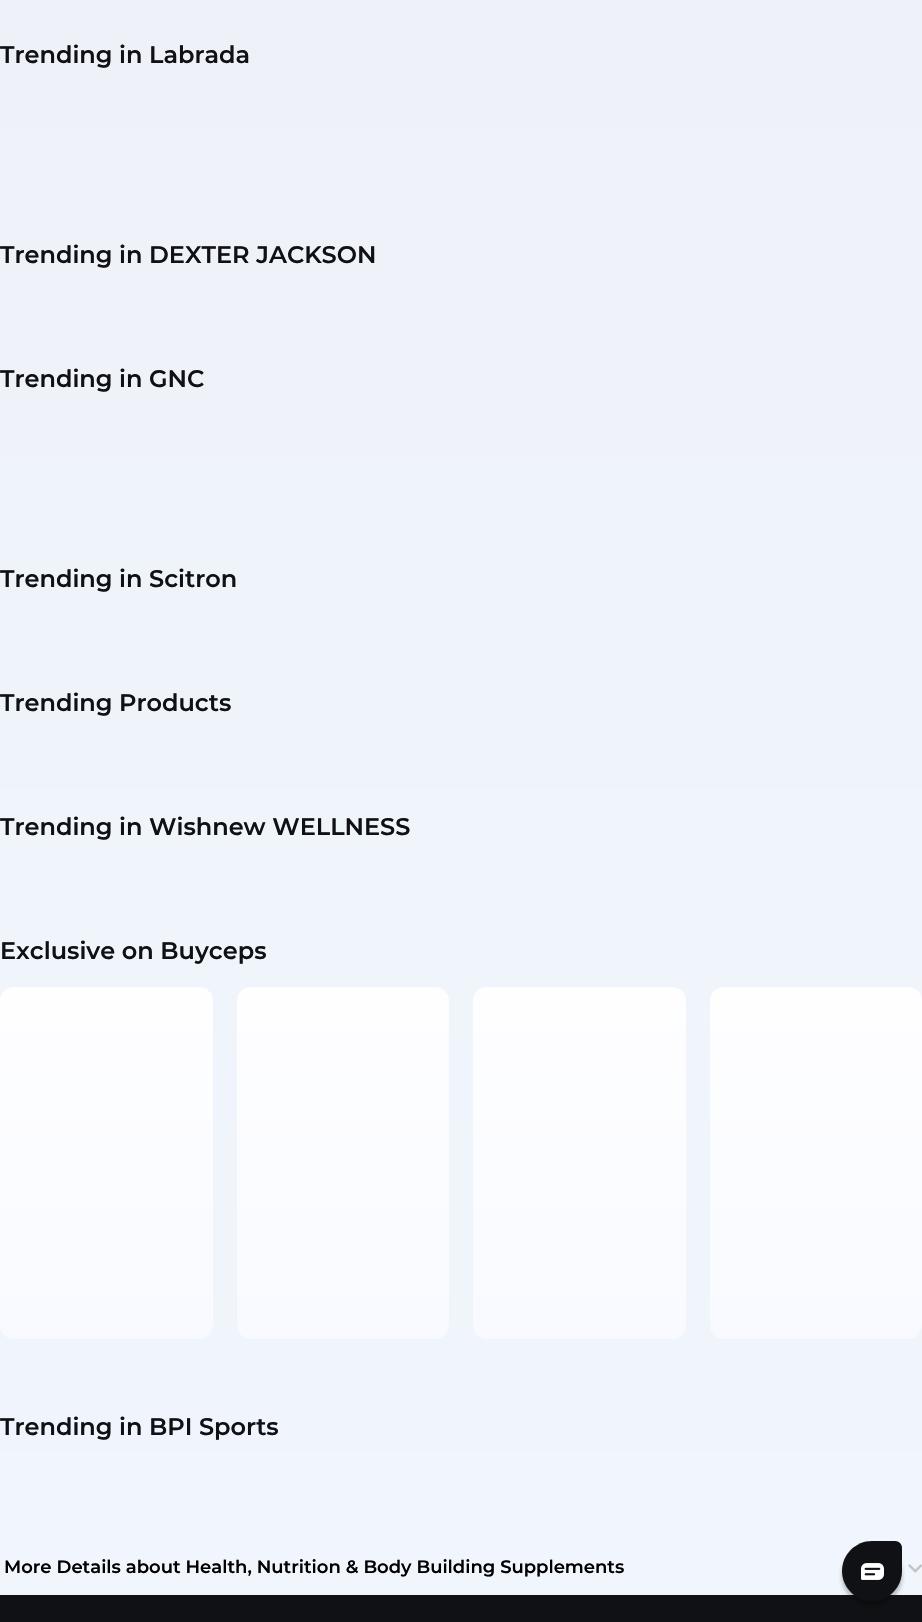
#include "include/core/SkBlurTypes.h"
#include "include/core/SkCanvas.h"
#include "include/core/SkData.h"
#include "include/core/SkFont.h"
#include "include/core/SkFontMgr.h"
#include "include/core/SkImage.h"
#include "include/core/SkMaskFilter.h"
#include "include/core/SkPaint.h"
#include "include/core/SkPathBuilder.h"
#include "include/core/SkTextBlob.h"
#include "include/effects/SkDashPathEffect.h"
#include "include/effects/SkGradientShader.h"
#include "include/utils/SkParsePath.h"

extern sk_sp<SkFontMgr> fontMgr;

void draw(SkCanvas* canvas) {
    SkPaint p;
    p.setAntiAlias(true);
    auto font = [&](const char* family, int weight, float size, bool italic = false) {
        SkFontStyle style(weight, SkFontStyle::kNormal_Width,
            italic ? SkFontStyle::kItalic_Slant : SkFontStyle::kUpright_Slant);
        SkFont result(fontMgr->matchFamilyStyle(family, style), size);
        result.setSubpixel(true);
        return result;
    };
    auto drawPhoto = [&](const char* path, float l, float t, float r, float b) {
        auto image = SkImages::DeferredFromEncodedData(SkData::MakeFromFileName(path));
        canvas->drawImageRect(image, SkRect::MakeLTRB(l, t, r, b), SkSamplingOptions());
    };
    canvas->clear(0xFFFFFFFF);
    {
        const SkColor colors[] = {0xFFEDF0F5, 0xFFF1F6FE};
        const float stops[] = {0, 1};
        const SkPoint ends[] = {{461, -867}, {461, 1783}};
        p.setShader(SkGradientShader::MakeLinear(ends, colors, stops, 2, SkTileMode::kClamp));
        p.setAlpha(255);
    }
    canvas->drawRect(SkRect::MakeLTRB(0, 0, 922, 1595), p);
    auto font1 = font("Montserrat", 600, 24);
    p.setShader(nullptr);
    p.setColor(0xFF101114);
    {
        const struct { const char* s; float x, y; } items[] = {
            {"Trending in Labrada", 0, 63},
            {"Trending in DEXTER JACKSON", 0, 263},
            {"Trending in GNC", 0, 387},
            {"Trending in Scitron", 0, 587},
            {"Trending Products", 0, 711},
            {"Trending in Wishnew WELLNESS", 0, 835},
            {"Exclusive on Buyceps", 0, 959},
        };
        for (auto [s, x, y] : items) {
            canvas->drawString(s, x, y, font1, p);
        }
    }
    {
        const SkColor colors[] = {0xFFFEFEFF, 0xFFF8FAFF};
        const float stops[] = {0, 1};
        const SkPoint ends[] = {{106, 987}, {107, 1339}};
        p.setShader(SkGradientShader::MakeLinear(ends, colors, stops, 2, SkTileMode::kClamp));
        p.setAlpha(255);
    }
    canvas->drawRoundRect(SkRect::MakeLTRB(0, 987, 213, 1339), 14, 14, p);
    {
        const SkColor colors[] = {0xFFFEFEFF, 0xFFF8FAFF};
        const float stops[] = {0, 1};
        const SkPoint ends[] = {{343, 987}, {343, 1339}};
        p.setShader(SkGradientShader::MakeLinear(ends, colors, stops, 2, SkTileMode::kClamp));
        p.setAlpha(255);
    }
    canvas->drawRoundRect(SkRect::MakeLTRB(237, 987, 449, 1339), 14, 14, p);
    {
        const SkColor colors[] = {0xFFFEFEFF, 0xFFF8FAFF};
        const float stops[] = {0, 1};
        const SkPoint ends[] = {{580, 987}, {580, 1339}};
        p.setShader(SkGradientShader::MakeLinear(ends, colors, stops, 2, SkTileMode::kClamp));
        p.setAlpha(255);
    }
    canvas->drawRoundRect(SkRect::MakeLTRB(473, 987, 686, 1339), 14, 14, p);
    {
        const SkColor colors[] = {0xFFFEFEFF, 0xFFF8FAFF};
        const float stops[] = {0, 1};
        const SkPoint ends[] = {{816, 987}, {816, 1339}};
        p.setShader(SkGradientShader::MakeLinear(ends, colors, stops, 2, SkTileMode::kClamp));
        p.setAlpha(255);
    }
    canvas->drawRoundRect(SkRect::MakeLTRB(710, 987, 922, 1339), 14, 14, p);
    p.setShader(nullptr);
    p.setColor(0xFF101114);
    canvas->drawString("Trending in BPI Sports", 0, 1435, font1, p);
    auto font2 = font("Montserrat", 600, 18);
    p.setColor(0xFF000000);
    canvas->drawString("More Details about Health, Nutrition & Body Building Supplements", 4, 1573, font2, p);
    drawPhoto("media/1.png", 908, 1564, 922, 1573);
    p.setColor(0xFF101114);
    canvas->drawRect(SkRect::MakeLTRB(0, 1595, 922, 1622), p);
    p.setColor(0x42000000);
    p.setMaskFilter(SkMaskFilter::MakeBlur(kNormal_SkBlurStyle, 2));
    canvas->drawRoundRect(SkRect::MakeLTRB(842, 1546, 902, 1606), 30, 30, p);
    p.setMaskFilter(nullptr);
    p.setColor(0xFF101114);
    canvas->drawPath(SkPathBuilder().moveTo(872, 1541).lineTo(895, 1541).cubicTo(899, 1541, 902, 1544, 902, 1548).lineTo(902, 1571).cubicTo(902, 1587.5f, 888.5f, 1601, 872, 1601).cubicTo(855.5f, 1601, 842, 1587.5f, 842, 1571).cubicTo(842, 1554.5f, 855.5f, 1541, 872, 1541).close().detach(), p);
    drawPhoto("media/2.png", 861, 1563, 884, 1580);
}
